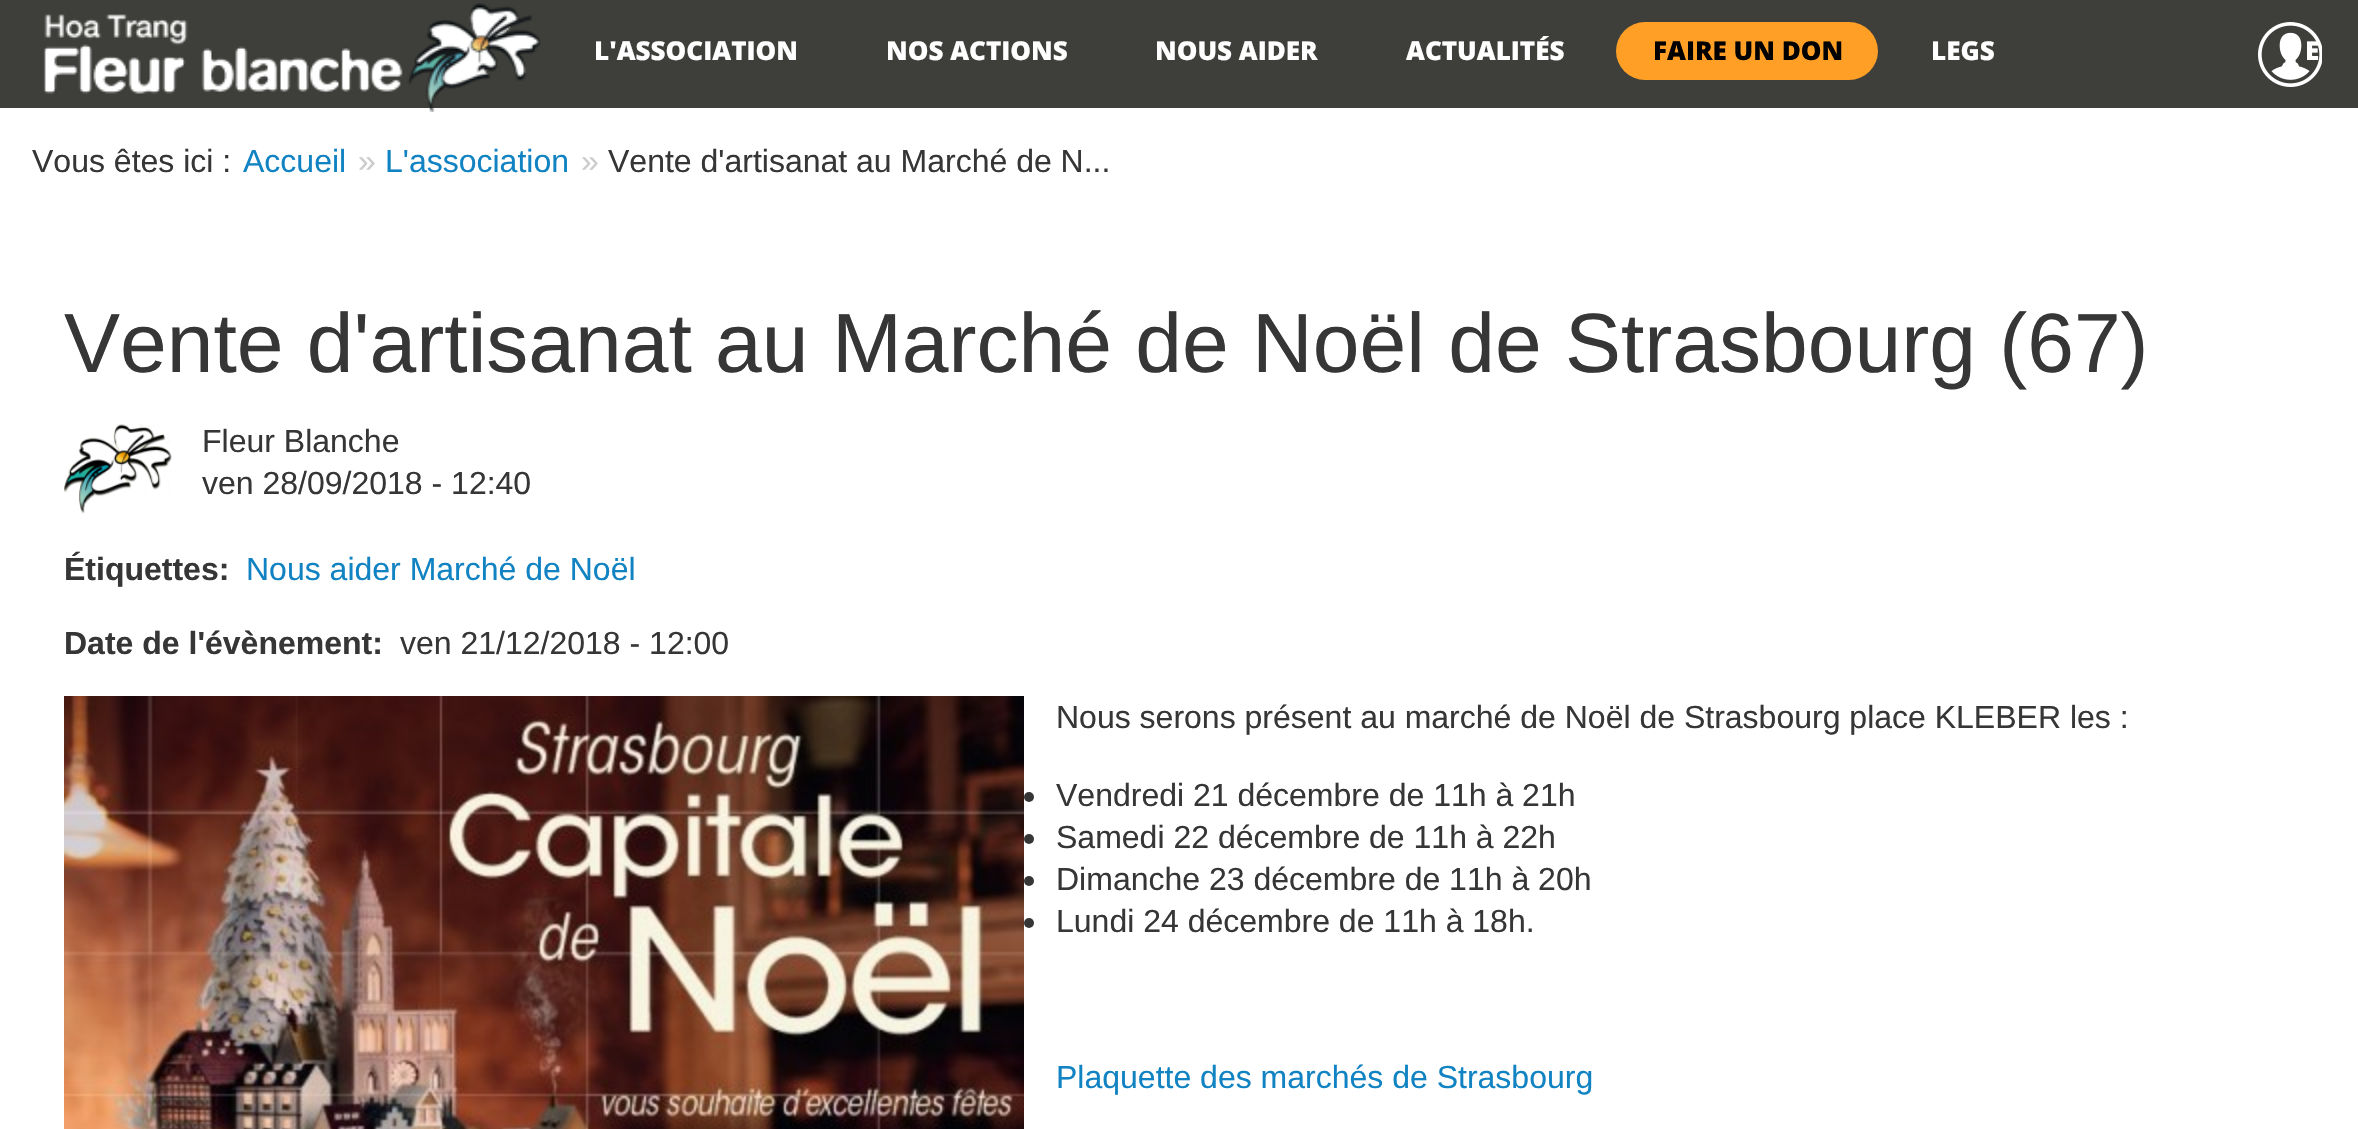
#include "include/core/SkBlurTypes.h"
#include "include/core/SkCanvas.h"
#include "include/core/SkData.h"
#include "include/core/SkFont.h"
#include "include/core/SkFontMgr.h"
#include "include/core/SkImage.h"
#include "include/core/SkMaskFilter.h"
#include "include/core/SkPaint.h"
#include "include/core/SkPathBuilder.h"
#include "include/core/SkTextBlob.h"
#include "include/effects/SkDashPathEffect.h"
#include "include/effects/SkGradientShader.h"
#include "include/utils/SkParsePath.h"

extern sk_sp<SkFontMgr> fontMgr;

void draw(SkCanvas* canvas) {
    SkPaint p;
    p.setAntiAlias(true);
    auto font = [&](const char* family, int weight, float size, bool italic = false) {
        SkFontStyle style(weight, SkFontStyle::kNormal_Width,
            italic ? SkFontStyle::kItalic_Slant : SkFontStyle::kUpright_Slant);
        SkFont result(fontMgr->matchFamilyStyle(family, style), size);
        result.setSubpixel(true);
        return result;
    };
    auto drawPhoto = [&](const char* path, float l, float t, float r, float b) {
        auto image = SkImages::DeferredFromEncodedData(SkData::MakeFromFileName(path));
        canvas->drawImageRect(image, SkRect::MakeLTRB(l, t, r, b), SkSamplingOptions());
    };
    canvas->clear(0xFFFFFFFF);
    p.setColor(0xFF3E3F3A);
    canvas->drawRect(SkRect::MakeLTRB(0, 0, 2358, 108), p);
    drawPhoto("media/1.png", 43, 3, 541, 112);
    auto font1 = font("Open Sans", 800, 26);
    p.setColor(0xFFFFFFFF);
    {
        const struct { const char* s; float x, y; } items[] = {
            {"L'ASSOCIATION", 594, 60},
            {"NOS ACTIONS", 886, 60},
            {"NOUS AIDER", 1155, 60},
            {"ACTUALITÉS", 1406, 60},
        };
        for (auto [s, x, y] : items) {
            canvas->drawString(s, x, y, font1, p);
        }
    }
    p.setColor(0xFFFF9F26);
    canvas->drawRoundRect(SkRect::MakeLTRB(1616, 22, 1878, 80), 29, 29, p);
    p.setColor(0xFF000000);
    canvas->drawString("FAIRE UN DON", 1653, 60, font1, p);
    p.setColor(0xFFFFFFFF);
    canvas->drawString("LEGS", 1931, 60, font1, p);
    drawPhoto("media/2.png", 2258, 22, 2322, 87);
    canvas->drawString("E", 2305, 60, font1, p);
    auto font2 = font("Liberation Sans", 400, 32);
    p.setColor(0xFF363636);
    canvas->drawString("Vous êtes ici :", 32, 172, font2, p);
    p.setColor(0xFF1183C2);
    canvas->drawString("Accueil", 243, 172, font2, p);
    p.setColor(0xFFCCCCCC);
    canvas->drawString("»", 358, 172, font2, p);
    p.setColor(0xFF1183C2);
    canvas->drawString("L'association", 385, 172, font2, p);
    p.setColor(0xFFCCCCCC);
    canvas->drawString("»", 581, 172, font2, p);
    p.setColor(0xFF363636);
    canvas->drawString("Vente d'artisanat au Marché de N...", 608, 172, font2, p);
    auto font3 = font("Liberation Sans", 400, 84);
    canvas->drawString("Vente d'artisanat au Marché de Noël de Strasbourg (67)", 64, 372, font3, p);
    drawPhoto("media/3.png", 64, 423, 172, 514);
    canvas->drawString("Fleur Blanche", 202, 452, font2, p);
    canvas->drawString("ven 28/09/2018 - 12:40", 202, 494, font2, p);
    auto font4 = font("Liberation Sans", 700, 32);
    canvas->drawString("Étiquettes:", 64, 580, font4, p);
    p.setColor(0xFF1183C2);
    canvas->drawString("Nous aider Marché de Noël", 246, 580, font2, p);
    p.setColor(0xFF363636);
    canvas->drawString("Date de l'évènement:", 64, 654, font4, p);
    canvas->drawString("ven 21/12/2018 - 12:00", 400, 654, font2, p);
    drawPhoto("media/4.png", 64, 696, 1024, 1129);
    canvas->drawString("Nous serons présent au marché de Noël de Strasbourg place KLEBER les :", 1056, 728, font2, p);
    canvas->drawCircle(1029, 797, 5, p);
    canvas->drawString("Vendredi 21 décembre de 11h à 21h", 1056, 806, font2, p);
    canvas->drawCircle(1029, 839, 5, p);
    canvas->drawString("Samedi 22 décembre de 11h à 22h", 1056, 848, font2, p);
    canvas->drawCircle(1029, 881, 5, p);
    canvas->drawString("Dimanche 23 décembre de 11h à 20h", 1056, 890, font2, p);
    canvas->drawCircle(1029, 923, 5, p);
    canvas->drawString("Lundi 24 décembre de 11h à 18h.", 1056, 932, font2, p);
    p.setColor(0xFF1183C2);
    canvas->drawString("Plaquette des marchés de Strasbourg", 1056, 1088, font2, p);
}
